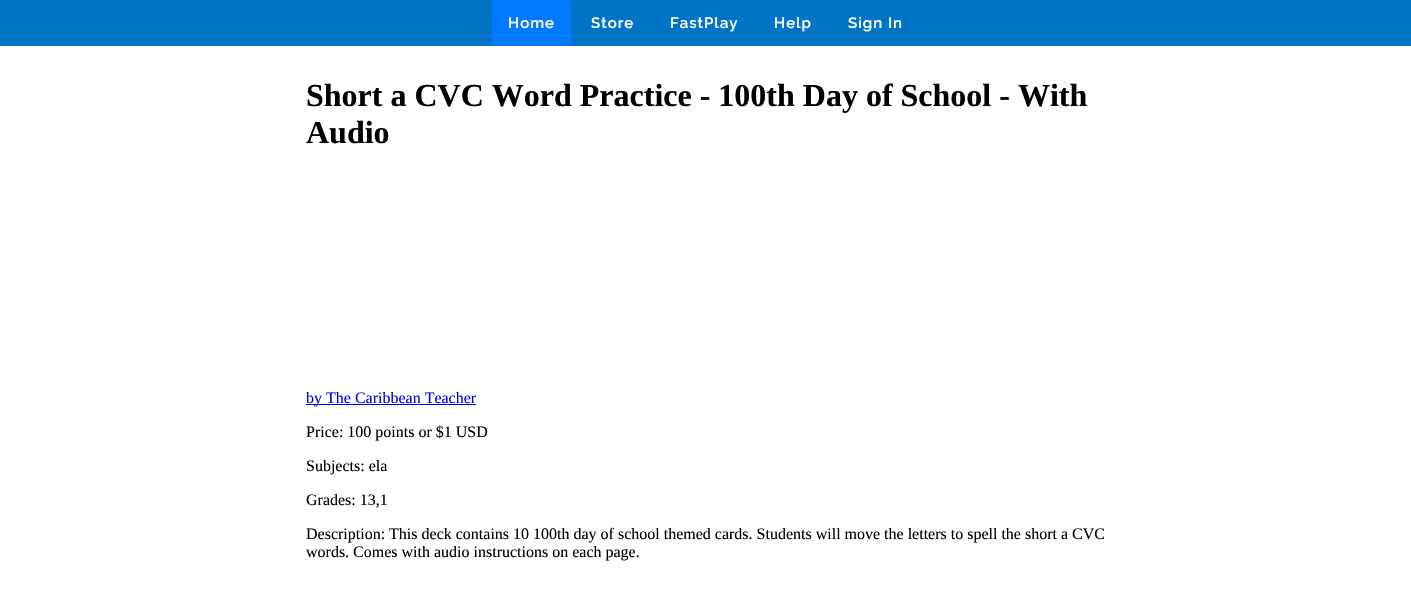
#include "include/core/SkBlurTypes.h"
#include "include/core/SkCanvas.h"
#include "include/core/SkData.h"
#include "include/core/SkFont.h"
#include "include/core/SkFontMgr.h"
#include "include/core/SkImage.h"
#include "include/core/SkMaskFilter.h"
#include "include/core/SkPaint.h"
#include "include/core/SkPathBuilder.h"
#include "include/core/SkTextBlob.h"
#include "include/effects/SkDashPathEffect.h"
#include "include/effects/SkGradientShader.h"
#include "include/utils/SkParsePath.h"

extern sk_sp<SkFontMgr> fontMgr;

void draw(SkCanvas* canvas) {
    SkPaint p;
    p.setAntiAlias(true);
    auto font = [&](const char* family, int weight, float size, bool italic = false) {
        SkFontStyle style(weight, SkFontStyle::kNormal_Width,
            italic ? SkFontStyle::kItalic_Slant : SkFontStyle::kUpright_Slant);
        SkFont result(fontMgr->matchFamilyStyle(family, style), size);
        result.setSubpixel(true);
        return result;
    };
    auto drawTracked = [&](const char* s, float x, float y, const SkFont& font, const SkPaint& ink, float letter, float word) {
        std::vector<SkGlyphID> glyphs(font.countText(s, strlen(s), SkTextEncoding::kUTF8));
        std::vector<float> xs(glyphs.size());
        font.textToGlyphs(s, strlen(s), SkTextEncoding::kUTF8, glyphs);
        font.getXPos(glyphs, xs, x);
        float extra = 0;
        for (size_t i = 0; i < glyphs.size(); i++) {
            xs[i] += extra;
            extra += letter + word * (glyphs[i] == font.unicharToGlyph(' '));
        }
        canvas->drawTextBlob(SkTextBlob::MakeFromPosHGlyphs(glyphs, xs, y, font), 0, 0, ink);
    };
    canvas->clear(0xFFFFFFFF);
    p.setColor(0xFF0074C7);
    canvas->drawRect(SkRect::MakeLTRB(0, 0, 1411, 46), p);
    p.setColor(0xFF007BFF);
    canvas->drawRoundRect(SkRect::MakeLTRB(492, 0, 571, 46), 3, 3, p);
    auto font1 = font("Raleway", 600, 15);
    p.setColor(0xFFFFFFFF);
    {
        const struct { const char* s; float x, y; } items[] = {
            {"Home", 508, 28},
            {"Store", 591, 28},
            {"FastPlay", 670, 28},
            {"Help", 774, 28},
            {"Sign In", 848, 28},
        };
        for (auto [s, x, y] : items) {
            drawTracked(s, x, y, font1, p, 1, 0);
        }
    }
    auto font2 = font("Liberation Serif", 700, 32);
    p.setColor(0xFF000000);
    canvas->drawString("Short a CVC Word Practice - 100th Day of School - With", 306, 106, font2, p);
    canvas->drawString("Audio", 306, 143, font2, p);
    p.setColor(0xFF0000EE);
    canvas->drawRect(SkRect::MakeLTRB(306, 404, 476, 405), p);
    auto font3 = font("Liberation Serif", 400, 16);
    canvas->drawString("by The Caribbean Teacher", 306, 403, font3, p);
    p.setColor(0xFF000000);
    {
        const struct { const char* s; float x, y; } items[] = {
            {"Price: 100 points or $1 USD", 306, 437},
            {"Subjects: ela", 306, 471},
            {"Grades: 13,1", 306, 505},
            {"Description: This deck contains 10 100th day of school themed cards. Students will move the letters to spell the short a CVC", 306, 539},
            {"words. Comes with audio instructions on each page.", 306, 557},
        };
        for (auto [s, x, y] : items) {
            canvas->drawString(s, x, y, font3, p);
        }
    }
}
